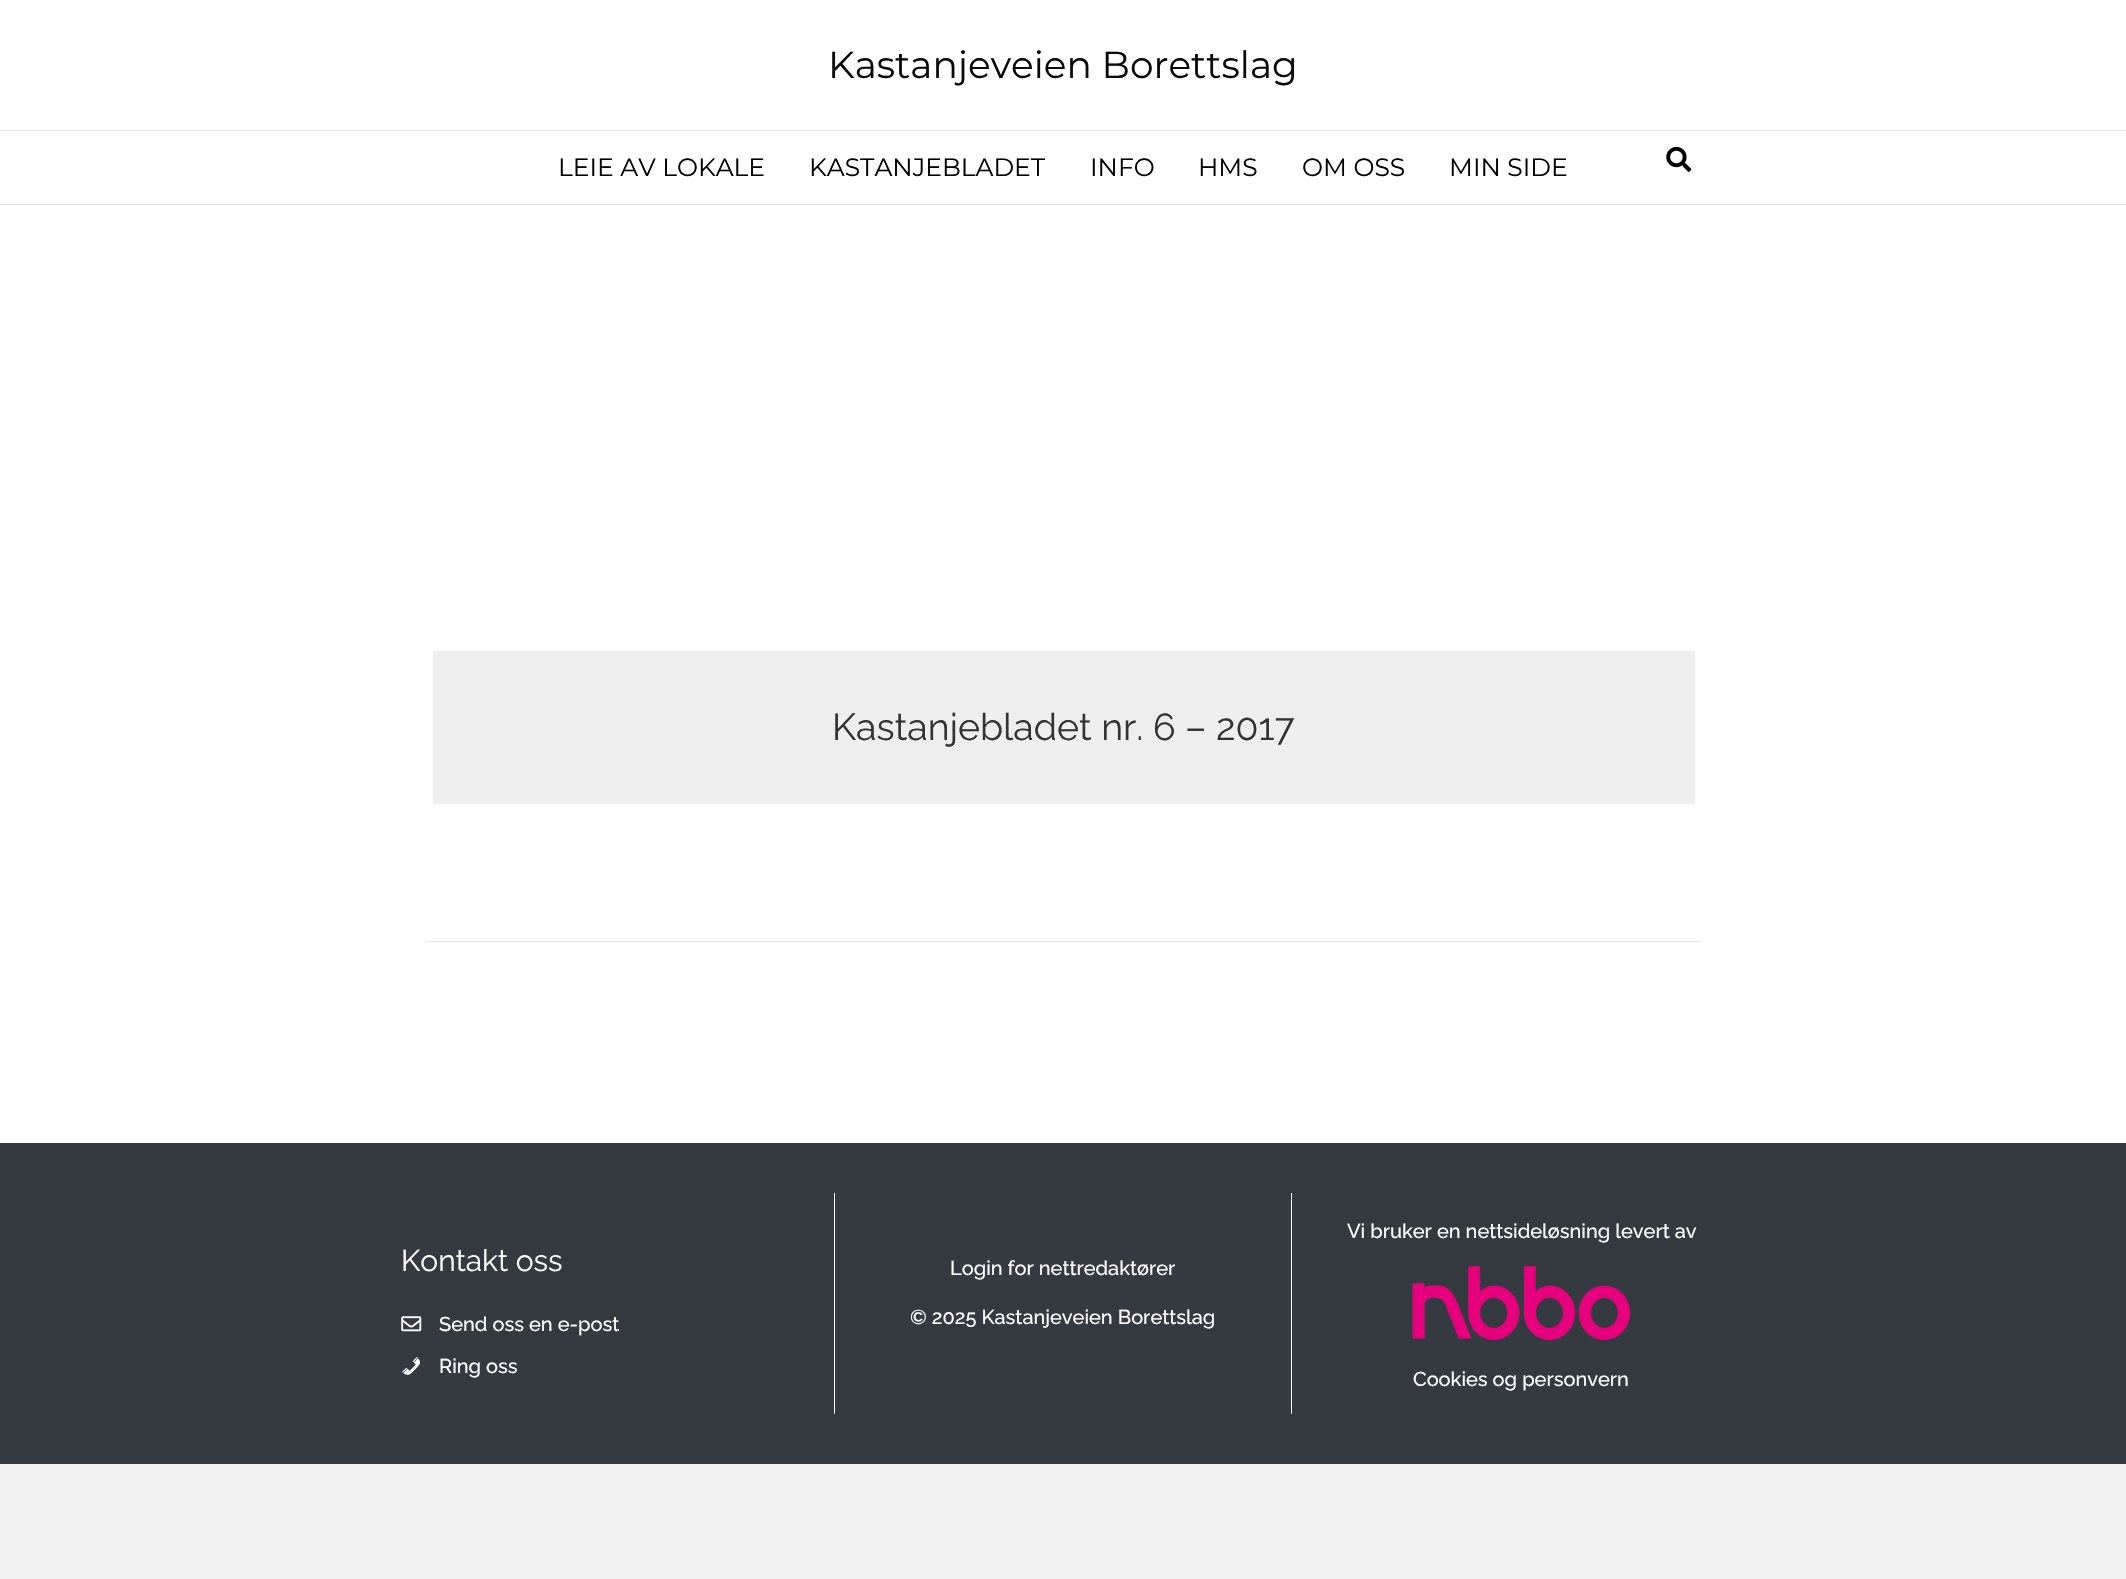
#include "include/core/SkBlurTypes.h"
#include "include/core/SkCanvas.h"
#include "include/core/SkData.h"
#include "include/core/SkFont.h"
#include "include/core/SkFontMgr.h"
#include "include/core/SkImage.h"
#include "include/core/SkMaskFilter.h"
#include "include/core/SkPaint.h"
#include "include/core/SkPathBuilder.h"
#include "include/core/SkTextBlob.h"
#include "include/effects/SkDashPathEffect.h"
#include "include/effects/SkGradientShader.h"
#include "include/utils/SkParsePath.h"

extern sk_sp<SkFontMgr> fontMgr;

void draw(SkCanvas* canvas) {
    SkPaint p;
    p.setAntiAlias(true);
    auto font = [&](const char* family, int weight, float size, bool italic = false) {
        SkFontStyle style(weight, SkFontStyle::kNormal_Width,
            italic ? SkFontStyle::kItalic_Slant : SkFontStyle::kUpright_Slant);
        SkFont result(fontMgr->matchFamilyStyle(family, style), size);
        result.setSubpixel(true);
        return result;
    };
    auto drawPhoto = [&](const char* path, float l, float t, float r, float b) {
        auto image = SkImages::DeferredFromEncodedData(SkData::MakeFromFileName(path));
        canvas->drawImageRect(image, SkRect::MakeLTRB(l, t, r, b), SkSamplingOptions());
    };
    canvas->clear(0xFFF2F2F2);
    p.setColor(0xFFFFFFFF);
    canvas->drawRect(SkRect::MakeLTRB(0, 0, 2126, 204), p);
    auto font1 = font("Montserrat", 100, 37.5f);
    p.setColor(0xFF0A0A0A);
    canvas->drawString("Kastanjeveien Borettslag", 828, 78, font1, p);
    p.setColor(0xFFE6E6E6);
    canvas->drawRect(SkRect::MakeLTRB(0, 130, 2126, 131), p);
    canvas->drawRect(SkRect::MakeLTRB(0, 204, 2126, 205), p);
    auto font2 = font("Montserrat", 100, 25);
    p.setColor(0xFF000000);
    {
        const struct { const char* s; float x, y; } items[] = {
            {"LEIE AV LOKALE", 558, 176},
            {"KASTANJEBLADET", 809, 176},
            {"INFO", 1090, 176},
            {"HMS", 1198, 176},
            {"OM OSS", 1302, 176},
            {"MIN SIDE", 1449, 176},
        };
        for (auto [s, x, y] : items) {
            canvas->drawString(s, x, y, font2, p);
        }
    }
    drawPhoto("media/1.png", 1666, 146, 1692, 172);
    p.setColor(0xFFFFFFFF);
    canvas->drawRect(SkRect::MakeLTRB(0, 205, 2126, 1143), p);
    p.setColor(0xFFEEEEEE);
    canvas->drawRect(SkRect::MakeLTRB(433, 651, 1695, 804), p);
    auto font3 = font("Raleway", 400, 37.5f);
    p.setColor(0xFF333333);
    canvas->drawString("Kastanjebladet nr. 6 – 2017", 832, 740, font3, p);
    p.setColor(0xFFE8E8E8);
    canvas->drawRect(SkRect::MakeLTRB(426, 941, 1701, 942), p);
    p.setColor(0xFF343A40);
    canvas->drawRect(SkRect::MakeLTRB(0, 1143, 2126, 1464), p);
    auto font4 = font("Raleway", 400, 30);
    p.setColor(0xFFFFFFFF);
    canvas->drawString("Kontakt oss", 401, 1271, font4, p);
    drawPhoto("media/2.png", 401, 1316, 422, 1332);
    auto font5 = font("Raleway", 500, 20);
    canvas->drawString("Send oss en e-post", 439, 1331, font5, p);
    drawPhoto("media/3.png", 402, 1357, 420, 1375);
    canvas->drawString("Ring oss", 439, 1373, font5, p);
    canvas->drawRect(SkRect::MakeLTRB(1291, 1193, 1292, 1414), p);
    canvas->drawRect(SkRect::MakeLTRB(834, 1193, 835, 1414), p);
    {
        const struct { const char* s; float x, y; } items[] = {
            {"Login for nettredaktører", 950, 1275},
            {"© 2025 Kastanjeveien Borettslag", 910, 1324},
            {"Vi bruker en nettsideløsning levert av", 1347, 1238},
        };
        for (auto [s, x, y] : items) {
            canvas->drawString(s, x, y, font5, p);
        }
    }
    drawPhoto("media/4.png", 1412, 1266, 1630, 1340);
    canvas->drawString("Cookies og personvern", 1413, 1386, font5, p);
}
